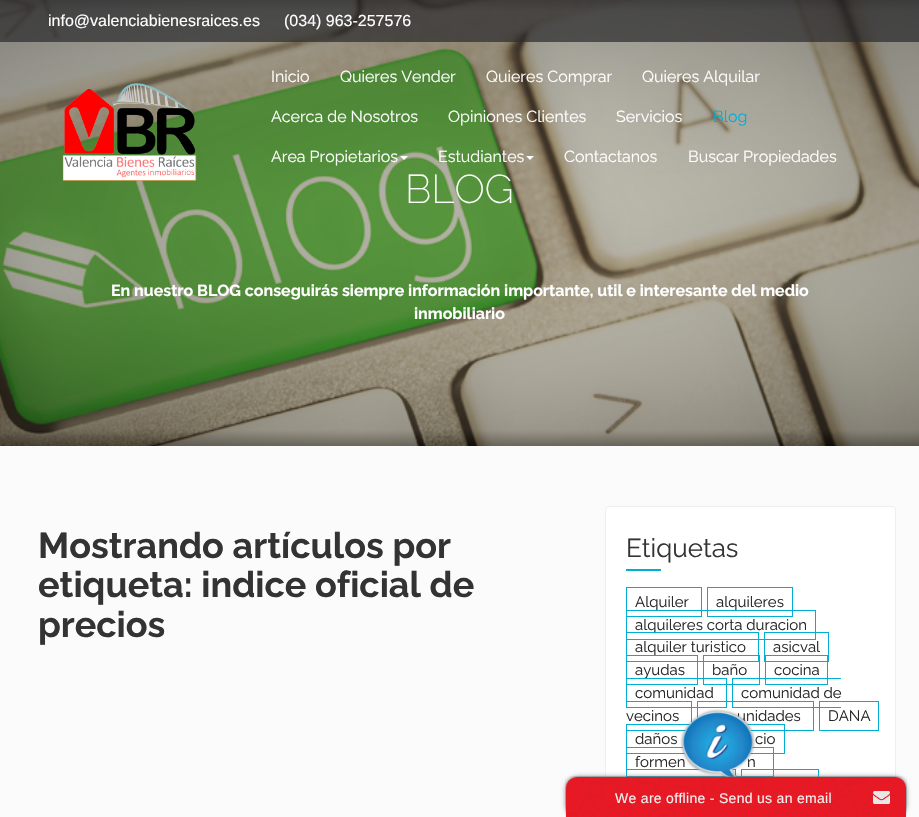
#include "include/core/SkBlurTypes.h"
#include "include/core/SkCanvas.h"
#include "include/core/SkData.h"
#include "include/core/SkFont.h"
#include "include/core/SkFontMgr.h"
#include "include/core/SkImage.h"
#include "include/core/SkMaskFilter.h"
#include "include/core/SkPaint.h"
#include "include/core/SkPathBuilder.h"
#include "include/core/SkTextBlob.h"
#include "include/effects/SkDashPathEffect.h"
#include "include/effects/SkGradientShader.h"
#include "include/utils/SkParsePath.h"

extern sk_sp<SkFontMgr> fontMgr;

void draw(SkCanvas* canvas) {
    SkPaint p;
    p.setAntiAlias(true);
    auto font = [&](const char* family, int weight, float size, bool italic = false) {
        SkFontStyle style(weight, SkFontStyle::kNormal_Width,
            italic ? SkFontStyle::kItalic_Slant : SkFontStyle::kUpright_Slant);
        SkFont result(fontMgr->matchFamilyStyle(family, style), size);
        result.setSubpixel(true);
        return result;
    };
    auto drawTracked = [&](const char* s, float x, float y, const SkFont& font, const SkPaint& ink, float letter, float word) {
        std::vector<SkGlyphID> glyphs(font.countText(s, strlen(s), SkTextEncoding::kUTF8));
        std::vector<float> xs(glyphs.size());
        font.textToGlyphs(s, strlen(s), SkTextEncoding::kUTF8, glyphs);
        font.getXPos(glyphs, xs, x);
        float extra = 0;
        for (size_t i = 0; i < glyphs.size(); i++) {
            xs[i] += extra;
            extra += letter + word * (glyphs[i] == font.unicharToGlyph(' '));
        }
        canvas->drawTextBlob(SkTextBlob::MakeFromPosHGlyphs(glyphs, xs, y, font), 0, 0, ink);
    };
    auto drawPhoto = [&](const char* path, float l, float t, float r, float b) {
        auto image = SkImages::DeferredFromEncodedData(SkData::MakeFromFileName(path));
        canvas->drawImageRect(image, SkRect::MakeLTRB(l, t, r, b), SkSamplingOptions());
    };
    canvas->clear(0xFFFBFBFB);
    drawPhoto("media/2.png", 0, 0, 919, 446);
    p.setColor(0xB3292A2C);
    canvas->drawRect(SkRect::MakeLTRB(0, 0, 919, 42), p);
    auto font1 = font("Liberation Sans", 400, 16);
    p.setColor(0xFFFFFFFF);
    canvas->drawString("info@valenciabienesraices.es", 48, 26, font1, p);
    canvas->drawString("(034) 963-257576", 284, 26, font1, p);
    drawPhoto("media/1.png", 62, 83, 197, 181);
    auto font2 = font("Raleway", 400, 16);
    {
        const struct { const char* s; float x, y; } items[] = {
            {"Inicio", 271, 82},
            {"Quieres Vender", 340, 82},
            {"Quieres Comprar", 486, 82},
            {"Quieres Alquilar", 642, 82},
            {"Acerca de Nosotros", 271, 122},
            {"Opiniones Clientes", 448, 122},
            {"Servicios", 616, 122},
        };
        for (auto [s, x, y] : items) {
            canvas->drawString(s, x, y, font2, p);
        }
    }
    p.setColor(0xFF02AED6);
    canvas->drawString("Blog", 713, 122, font2, p);
    p.setColor(0xFFFFFFFF);
    canvas->drawString("Area Propietarios", 271, 162, font2, p);
    canvas->drawPath(SkPathBuilder().moveTo(400, 156).lineTo(408, 156).lineTo(404, 160).close().detach(), p);
    canvas->drawString("Estudiantes", 438, 162, font2, p);
    canvas->drawPath(SkPathBuilder().moveTo(526, 156).lineTo(534, 156).lineTo(530, 160).close().detach(), p);
    canvas->drawString("Contactanos", 564, 162, font2, p);
    canvas->drawString("Buscar Propiedades", 688, 162, font2, p);
    auto font3 = font("Raleway", 200, 40);
    canvas->drawString("BLOG", 405, 203, font3, p);
    auto font4 = font("Raleway", 700, 16);
    canvas->drawString("En nuestro BLOG conseguirás siempre información importante, util e interesante del medio", 111, 296, font4, p);
    canvas->drawString("inmobiliario", 414, 319, font4, p);
    auto font5 = font("Raleway", 700, 36);
    p.setColor(0xFF333333);
    {
        const struct { const char* s; float x, y; } items[] = {
            {"Mostrando artículos por", 38, 558},
            {"etiqueta: indice oficial de", 38, 597},
            {"precios", 38, 637},
        };
        for (auto [s, x, y] : items) {
            canvas->drawString(s, x, y, font5, p);
        }
    }
    p.setColor(0xFFFFFFFF);
    canvas->drawRoundRect(SkRect::MakeLTRB(605.5f, 506.5f, 895.5f, 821.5f), 3.5f, 3.5f, p);
    p.setStyle(SkPaint::kStroke_Style);
    p.setStrokeWidth(1);
    p.setColor(0xFFEEEEEE);
    canvas->drawRoundRect(SkRect::MakeLTRB(605.5f, 506.5f, 895.5f, 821.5f), 3.5f, 3.5f, p);
    auto font6 = font("Raleway", 400, 26);
    p.setStyle(SkPaint::kFill_Style);
    p.setColor(0xFF333333);
    canvas->drawString("Etiquetas", 626, 557, font6, p);
    p.setColor(0xFF02AED6);
    canvas->drawRect(SkRect::MakeLTRB(626, 569, 661, 571), p);
    p.setStyle(SkPaint::kStroke_Style);
    canvas->drawRect(SkRect::MakeLTRB(626.5f, 587.5f, 701.5f, 616.5f), p);
    auto font7 = font("Raleway", 400, 15);
    p.setStyle(SkPaint::kFill_Style);
    p.setColor(0xFF262626);
    canvas->drawString("Alquiler", 635, 607, font7, p);
    p.setStyle(SkPaint::kStroke_Style);
    p.setColor(0xFF02AED6);
    canvas->drawRect(SkRect::MakeLTRB(707.5f, 587.5f, 792.5f, 616.5f), p);
    p.setStyle(SkPaint::kFill_Style);
    p.setColor(0xFF262626);
    canvas->drawString("alquileres", 716, 607, font7, p);
    p.setStyle(SkPaint::kStroke_Style);
    p.setColor(0xFF02AED6);
    canvas->drawRect(SkRect::MakeLTRB(626.5f, 610.5f, 815.5f, 639.5f), p);
    p.setStyle(SkPaint::kFill_Style);
    p.setColor(0xFF262626);
    canvas->drawString("alquileres corta duracion", 635, 630, font7, p);
    p.setStyle(SkPaint::kStroke_Style);
    p.setColor(0xFF02AED6);
    canvas->drawRect(SkRect::MakeLTRB(626.5f, 632.5f, 758.5f, 661.5f), p);
    p.setStyle(SkPaint::kFill_Style);
    p.setColor(0xFF262626);
    canvas->drawString("alquiler turistico", 635, 652, font7, p);
    p.setStyle(SkPaint::kStroke_Style);
    p.setColor(0xFF02AED6);
    canvas->drawRect(SkRect::MakeLTRB(764.5f, 632.5f, 828.5f, 661.5f), p);
    p.setStyle(SkPaint::kFill_Style);
    p.setColor(0xFF262626);
    canvas->drawString("asicval", 773, 652, font7, p);
    p.setStyle(SkPaint::kStroke_Style);
    p.setColor(0xFF02AED6);
    canvas->drawRect(SkRect::MakeLTRB(626.5f, 655.5f, 697.5f, 684.5f), p);
    p.setStyle(SkPaint::kFill_Style);
    p.setColor(0xFF262626);
    canvas->drawString("ayudas", 635, 675, font7, p);
    p.setStyle(SkPaint::kStroke_Style);
    p.setColor(0xFF02AED6);
    canvas->drawRect(SkRect::MakeLTRB(703.5f, 655.5f, 759.5f, 684.5f), p);
    p.setStyle(SkPaint::kFill_Style);
    p.setColor(0xFF262626);
    canvas->drawString("baño", 712, 675, font7, p);
    p.setStyle(SkPaint::kStroke_Style);
    p.setColor(0xFF02AED6);
    canvas->drawRect(SkRect::MakeLTRB(765.5f, 655.5f, 827.5f, 684.5f), p);
    p.setStyle(SkPaint::kFill_Style);
    p.setColor(0xFF262626);
    canvas->drawString("cocina", 774, 675, font7, p);
    p.setStyle(SkPaint::kStroke_Style);
    p.setColor(0xFF02AED6);
    canvas->drawRect(SkRect::MakeLTRB(626.5f, 678.5f, 726.5f, 707.5f), p);
    p.setStyle(SkPaint::kFill_Style);
    p.setColor(0xFF262626);
    canvas->drawString("comunidad", 635, 698, font7, p);
    canvas->drawString("comunidad de", 741, 698, font7, p);
    {
        const struct { float l, t, r, b; SkColor color; } items[] = {
            {732, 678, 841, 679, 0xFF02AED6},
            {732, 707, 841, 708, 0xFF02AED6},
            {732, 678, 733, 708, 0xFF02AED6},
        };
        for (auto [l, t, r, b, color] : items) {
            p.setColor(color);
            canvas->drawRect(SkRect::MakeLTRB(l, t, r, b), p);
        }
    }
    p.setColor(0xFF262626);
    canvas->drawString("vecinos", 626, 721, font7, p);
    {
        const struct { float l, t, r, b; SkColor color; } items[] = {
            {626, 701, 692, 702, 0xFF02AED6},
            {691, 701, 692, 731, 0xFF02AED6},
            {626, 730, 692, 731, 0xFF02AED6},
        };
        for (auto [l, t, r, b, color] : items) {
            p.setColor(color);
            canvas->drawRect(SkRect::MakeLTRB(l, t, r, b), p);
        }
    }
    p.setStyle(SkPaint::kStroke_Style);
    canvas->drawRect(SkRect::MakeLTRB(697.5f, 701.5f, 813.5f, 730.5f), p);
    p.setStyle(SkPaint::kFill_Style);
    p.setColor(0xFF262626);
    canvas->drawString("unidades", 737, 721, font7, p);
    p.setStyle(SkPaint::kStroke_Style);
    p.setColor(0xFF02AED6);
    canvas->drawRect(SkRect::MakeLTRB(819.5f, 701.5f, 878.5f, 730.5f), p);
    p.setStyle(SkPaint::kFill_Style);
    p.setColor(0xFF262626);
    canvas->drawString("DANA", 828, 721, font7, p);
    p.setStyle(SkPaint::kStroke_Style);
    p.setColor(0xFF02AED6);
    canvas->drawRect(SkRect::MakeLTRB(626.5f, 724.5f, 689.5f, 753.5f), p);
    p.setStyle(SkPaint::kFill_Style);
    p.setColor(0xFF262626);
    canvas->drawString("daños", 635, 744, font7, p);
    p.setStyle(SkPaint::kStroke_Style);
    p.setColor(0xFF02AED6);
    canvas->drawRect(SkRect::MakeLTRB(695.5f, 724.5f, 784.5f, 753.5f), p);
    p.setStyle(SkPaint::kFill_Style);
    p.setColor(0xFF262626);
    canvas->drawString("cio", 755, 744, font7, p);
    p.setStyle(SkPaint::kStroke_Style);
    p.setColor(0xFF02AED6);
    canvas->drawRect(SkRect::MakeLTRB(626.5f, 747.5f, 773.5f, 776.5f), p);
    p.setStyle(SkPaint::kFill_Style);
    p.setColor(0xFF262626);
    canvas->drawString("formen", 635, 767, font7, p);
    canvas->drawString("n", 747, 767, font7, p);
    p.setStyle(SkPaint::kStroke_Style);
    p.setColor(0xFF02AED6);
    canvas->drawRect(SkRect::MakeLTRB(626.5f, 769.5f, 735.5f, 798.5f), p);
    canvas->drawRect(SkRect::MakeLTRB(741.5f, 769.5f, 818.5f, 798.5f), p);
    drawPhoto("media/3.png", 680, 709, 755, 777);
    p.setStyle(SkPaint::kFill_Style);
    p.setColor(0xFF777777);
    p.setMaskFilter(SkMaskFilter::MakeBlur(kNormal_SkBlurStyle, 2.5f));
    canvas->drawRoundRect(SkRect::MakeLTRB(566, 777, 906, 817), 13, 13, p);
    p.setMaskFilter(nullptr);
    drawPhoto("media/4.png", 565, 776, 907, 817);
    p.setColor(0xFFE61924);
    canvas->drawPath(SkPathBuilder().moveTo(577, 777).lineTo(895, 777).cubicTo(901, 777, 906, 782, 906, 788).lineTo(906, 817).lineTo(566, 817).lineTo(566, 788).cubicTo(566, 782, 571, 777, 577, 777).close().detach(), p);
    drawPhoto("media/5.png", 569, 777, 906, 817);
    auto font8 = font("Liberation Sans", 400, 14);
    p.setColor(0xFFF1F1F1);
    drawTracked("We are offline - Send us an email", 615, 803, font8, p, 0.3f, 0);
    drawPhoto("media/6.png", 873, 791, 890, 804);
}
